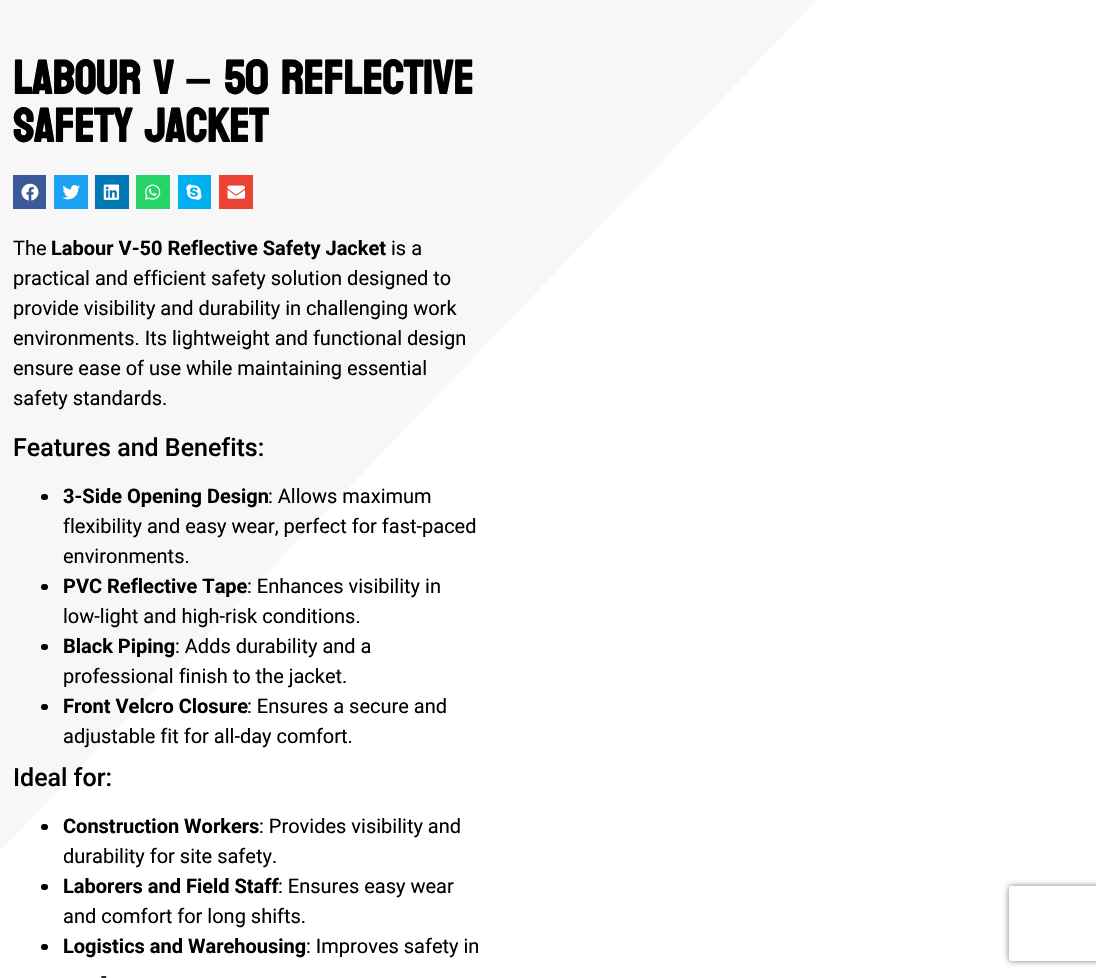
#include "include/core/SkBlurTypes.h"
#include "include/core/SkCanvas.h"
#include "include/core/SkData.h"
#include "include/core/SkFont.h"
#include "include/core/SkFontMgr.h"
#include "include/core/SkImage.h"
#include "include/core/SkMaskFilter.h"
#include "include/core/SkPaint.h"
#include "include/core/SkPathBuilder.h"
#include "include/core/SkTextBlob.h"
#include "include/effects/SkDashPathEffect.h"
#include "include/effects/SkGradientShader.h"
#include "include/utils/SkParsePath.h"

extern sk_sp<SkFontMgr> fontMgr;

void draw(SkCanvas* canvas) {
    SkPaint p;
    p.setAntiAlias(true);
    auto font = [&](const char* family, int weight, float size, bool italic = false) {
        SkFontStyle style(weight, SkFontStyle::kNormal_Width,
            italic ? SkFontStyle::kItalic_Slant : SkFontStyle::kUpright_Slant);
        SkFont result(fontMgr->matchFamilyStyle(family, style), size);
        result.setSubpixel(true);
        return result;
    };
    auto drawPhoto = [&](const char* path, float l, float t, float r, float b) {
        auto image = SkImages::DeferredFromEncodedData(SkData::MakeFromFileName(path));
        canvas->drawImageRect(image, SkRect::MakeLTRB(l, t, r, b), SkSamplingOptions());
    };
    canvas->clear(0xFFFFFFFF);
    p.setColor(0xFFF7F7F7);
    canvas->drawPath(SkPathBuilder().moveTo(0, -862).lineTo(0, 851).lineTo(1096, -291).lineTo(1096, -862).close().detach(), p);
    auto font1 = font("Bayon", 700, 47.5f);
    p.setColor(0xFF000000);
    canvas->drawString("Labour V", 13, 94, font1, p);
    auto font2 = font("Liberation Sans", 700, 47.5f);
    canvas->drawString("–", 185, 94, font2, p);
    canvas->drawString("50 Reflective", 224, 94, font1, p);
    canvas->drawString("Safety Jacket", 13, 142, font1, p);
    p.setColor(0xFF3B5998);
    canvas->drawRect(SkRect::MakeLTRB(13, 175, 46, 209), p);
    drawPhoto("media/1.png", 21, 183, 39, 201);
    p.setColor(0xFF1DA1F2);
    canvas->drawRect(SkRect::MakeLTRB(54, 175, 88, 209), p);
    drawPhoto("media/2.png", 62, 185, 80, 200);
    p.setColor(0xFF0077B5);
    canvas->drawRect(SkRect::MakeLTRB(95, 175, 129, 209), p);
    drawPhoto("media/3.png", 103, 184, 120, 200);
    p.setColor(0xFF25D366);
    canvas->drawRect(SkRect::MakeLTRB(136, 175, 170, 209), p);
    drawPhoto("media/4.png", 145, 184, 161, 200);
    p.setColor(0xFF00AFF0);
    canvas->drawRect(SkRect::MakeLTRB(178, 175, 211, 209), p);
    drawPhoto("media/5.png", 186, 184, 202, 200);
    p.setColor(0xFFEA4335);
    canvas->drawRect(SkRect::MakeLTRB(219, 175, 253, 209), p);
    drawPhoto("media/6.png", 227, 185, 245, 199);
    auto font3 = font("Roboto", 400, 20);
    p.setColor(0xFF000000);
    canvas->drawString("The", 13, 255, font3, p);
    auto font4 = font("Roboto", 700, 20);
    canvas->drawString("Labour V-50 Reflective Safety Jacket", 51, 255, font4, p);
    {
        const struct { const char* s; float x, y; } items[] = {
            {"is a", 391, 255},
            {"practical and efficient safety solution designed to", 13, 285},
            {"provide visibility and durability in challenging work", 13, 315},
            {"environments. Its lightweight and functional design", 13, 345},
            {"ensure ease of use while maintaining essential", 13, 375},
            {"safety standards.", 13, 405},
        };
        for (auto [s, x, y] : items) {
            canvas->drawString(s, x, y, font3, p);
        }
    }
    auto font5 = font("Roboto", 500, 25);
    canvas->drawString("Features and Benefits:", 13, 456, font5, p);
    canvas->drawRoundRect(SkRect::MakeLTRB(41, 494, 48, 500), 3, 3, p);
    canvas->drawString("3-Side Opening Design", 63, 503, font4, p);
    {
        const struct { const char* s; float x, y; } items[] = {
            {": Allows maximum", 268, 503},
            {"flexibility and easy wear, perfect for fast-paced", 63, 533},
            {"environments.", 63, 563},
        };
        for (auto [s, x, y] : items) {
            canvas->drawString(s, x, y, font3, p);
        }
    }
    canvas->drawRoundRect(SkRect::MakeLTRB(41, 584, 48, 590), 3, 3, p);
    canvas->drawString("PVC Reflective Tape", 63, 593, font4, p);
    canvas->drawString(": Enhances visibility in", 247, 593, font3, p);
    canvas->drawString("low-light and high-risk conditions.", 63, 623, font3, p);
    canvas->drawRoundRect(SkRect::MakeLTRB(41, 644, 48, 650), 3, 3, p);
    canvas->drawString("Black Piping", 63, 653, font4, p);
    canvas->drawString(": Adds durability and a", 175, 653, font3, p);
    canvas->drawString("professional finish to the jacket.", 63, 683, font3, p);
    canvas->drawRoundRect(SkRect::MakeLTRB(41, 704, 48, 710), 3, 3, p);
    canvas->drawString("Front Velcro Closure", 63, 713, font4, p);
    canvas->drawString(": Ensures a secure and", 247, 713, font3, p);
    canvas->drawString("adjustable fit for all-day comfort.", 63, 743, font3, p);
    canvas->drawString("Ideal for:", 13, 786, font5, p);
    canvas->drawRoundRect(SkRect::MakeLTRB(41, 824, 48, 830), 3, 3, p);
    canvas->drawString("Construction Workers", 63, 833, font4, p);
    canvas->drawString(": Provides visibility and", 259, 833, font3, p);
    canvas->drawString("durability for site safety.", 63, 863, font3, p);
    canvas->drawRoundRect(SkRect::MakeLTRB(41, 884, 48, 890), 3, 3, p);
    canvas->drawString("Laborers and Field Staff", 63, 893, font4, p);
    canvas->drawString(": Ensures easy wear", 278, 893, font3, p);
    canvas->drawString("and comfort for long shifts.", 63, 923, font3, p);
    canvas->drawRoundRect(SkRect::MakeLTRB(41, 944, 48, 950), 3, 3, p);
    canvas->drawString("Logistics and Warehousing", 63, 953, font4, p);
    canvas->drawString(": Improves safety in", 306, 953, font3, p);
    canvas->drawString("-", 101, 983, font3, p);
    canvas->save();
    canvas->clipPath(SkPathBuilder(SkPathFillType::kEvenOdd).moveTo(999, 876).lineTo(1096, 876).lineTo(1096, 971).lineTo(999, 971).close().moveTo(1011.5f, 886).lineTo(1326.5f, 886).cubicTo(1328, 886, 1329, 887, 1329, 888.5f).lineTo(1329, 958.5f).cubicTo(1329, 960, 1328, 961, 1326.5f, 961).lineTo(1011.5f, 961).cubicTo(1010, 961, 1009, 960, 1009, 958.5f).lineTo(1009, 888.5f).cubicTo(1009, 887, 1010, 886, 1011.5f, 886).close().detach(), true);
    p.setColor(0xFF808080);
    p.setMaskFilter(SkMaskFilter::MakeBlur(kNormal_SkBlurStyle, 3));
    canvas->drawRoundRect(SkRect::MakeLTRB(1009, 886, 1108, 961), 2.5f, 2.5f, p);
    p.setMaskFilter(nullptr);
    canvas->restore();
}
